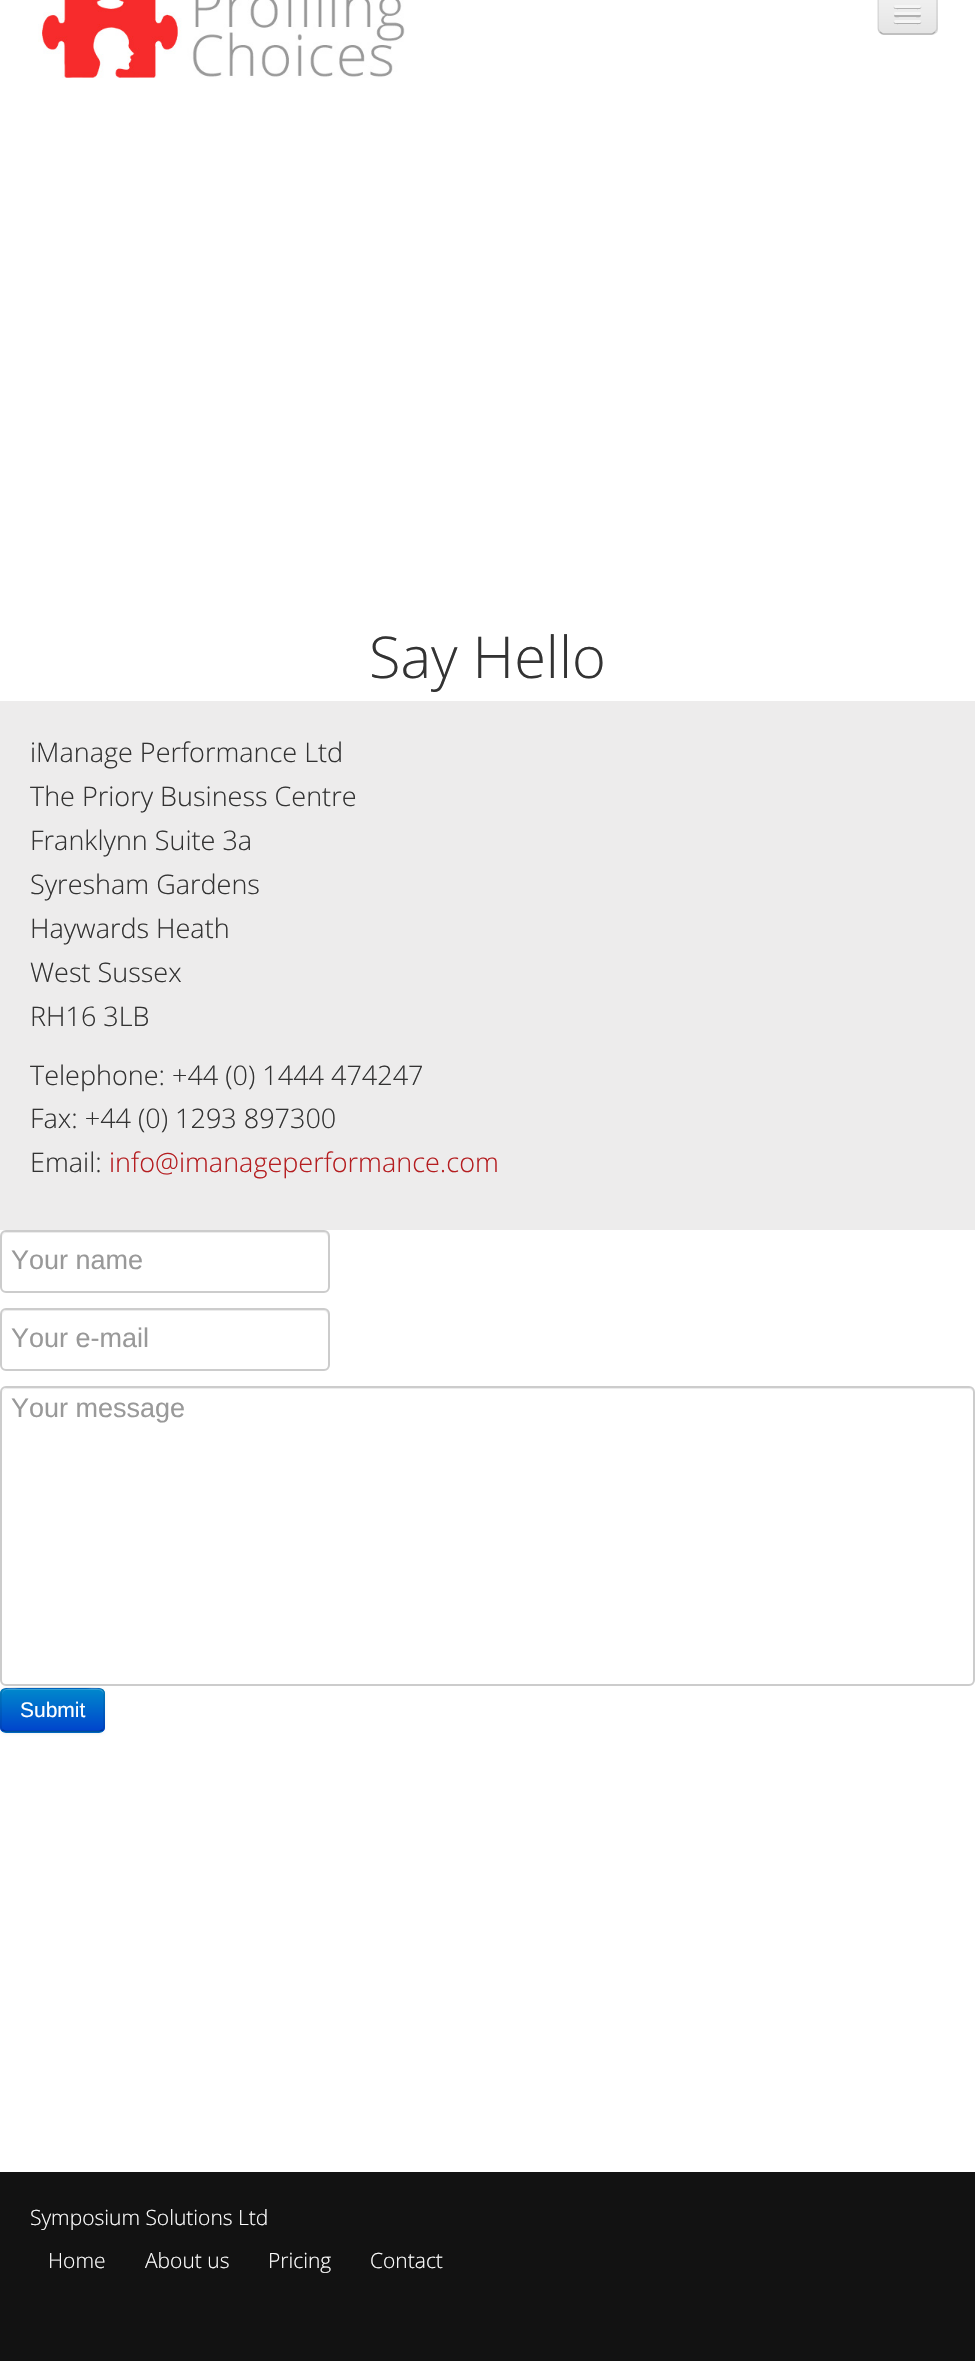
#include "include/core/SkBlurTypes.h"
#include "include/core/SkCanvas.h"
#include "include/core/SkData.h"
#include "include/core/SkFont.h"
#include "include/core/SkFontMgr.h"
#include "include/core/SkImage.h"
#include "include/core/SkMaskFilter.h"
#include "include/core/SkPaint.h"
#include "include/core/SkPathBuilder.h"
#include "include/core/SkTextBlob.h"
#include "include/effects/SkDashPathEffect.h"
#include "include/effects/SkGradientShader.h"
#include "include/utils/SkParsePath.h"

extern sk_sp<SkFontMgr> fontMgr;

void draw(SkCanvas* canvas) {
    SkPaint p;
    p.setAntiAlias(true);
    auto font = [&](const char* family, int weight, float size, bool italic = false) {
        SkFontStyle style(weight, SkFontStyle::kNormal_Width,
            italic ? SkFontStyle::kItalic_Slant : SkFontStyle::kUpright_Slant);
        SkFont result(fontMgr->matchFamilyStyle(family, style), size);
        result.setSubpixel(true);
        return result;
    };
    auto drawPhoto = [&](const char* path, float l, float t, float r, float b) {
        auto image = SkImages::DeferredFromEncodedData(SkData::MakeFromFileName(path));
        canvas->drawImageRect(image, SkRect::MakeLTRB(l, t, r, b), SkSamplingOptions());
    };
    canvas->clear(0xFFFFFFFF);
    drawPhoto("media/1.png", 38, 0, 405, 78);
    p.setColor(0xFFEDEDED);
    canvas->drawRoundRect(SkRect::MakeLTRB(878, -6, 938, 35), 6, 6, p);
    canvas->save();
    canvas->clipPath(SkPathBuilder().moveTo(884, -9).lineTo(932, -9).cubicTo(935.5f, -9, 938, -6.5f, 938, -3).lineTo(938, 29).cubicTo(938, 32.5f, 935.5f, 35, 932, 35).lineTo(884, 35).cubicTo(880.5f, 35, 878, 32.5f, 878, 29).lineTo(878, -3).cubicTo(878, -6.5f, 880.5f, -9, 884, -9).close().detach(), true);
    {
        const SkColor colors[] = {0xFFF2F2F2, 0xFFE5E5E5};
        const float stops[] = {0, 1};
        const SkPoint ends[] = {{908, -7.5f}, {908, 33}};
        p.setShader(SkGradientShader::MakeLinear(ends, colors, stops, 2, SkTileMode::kClamp));
        p.setAlpha(255);
    }
    canvas->drawRect(SkRect::MakeLTRB(878, 0, 938, 33), p);
    canvas->restore();
    p.setStyle(SkPaint::kStroke_Style);
    p.setStrokeWidth(1.5f);
    p.setShader(nullptr);
    p.setColor(0x40000000);
    canvas->drawPath(SkPathBuilder().moveTo(935, 32).cubicTo(934, 33, 933, 34, 931.5f, 34).lineTo(883.5f, 34).cubicTo(882, 34, 881, 33, 880, 32).detach(), p);
    p.setColor(0x1A000000);
    canvas->drawPath(SkPathBuilder().moveTo(880, 32).cubicTo(879, 31, 878, 30, 878, 28.5f).lineTo(878, -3).cubicTo(878, -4.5f, 879, -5.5f, 880, -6.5f).cubicTo(881, -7.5f, 882, -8, 883.5f, -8).lineTo(931.5f, -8).cubicTo(933, -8, 934, -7.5f, 935, -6.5f).cubicTo(936, -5.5f, 937, -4.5f, 937, -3).lineTo(937, 28.5f).cubicTo(937, 30, 936, 31, 935, 32).detach(), p);
    p.setStyle(SkPaint::kFill_Style);
    p.setColor(0xFFB2B2B2);
    canvas->drawPath(SkPathBuilder().moveTo(894, 6.5f).cubicTo(892.5f, 10, 899.5f, 9, 899.5f, 9).lineTo(915.5f, 9).cubicTo(915.5f, 9, 922.5f, 10, 921, 6.5f).cubicTo(920.5f, 7, 920, 7.5f, 919.5f, 7.5f).lineTo(895.5f, 7.5f).cubicTo(895, 7.5f, 894.5f, 7, 894, 6.5f).close().detach(), p);
    p.setColor(0xFFF5F5F5);
    canvas->drawRoundRect(SkRect::MakeLTRB(894, 5, 921, 8), 1.5f, 1.5f, p);
    p.setColor(0xFFB0B0B0);
    canvas->drawPath(SkPathBuilder().moveTo(894.5f, 14.5f).lineTo(894, 16).cubicTo(894.5f, 18, 899, 17, 899.5f, 17).lineTo(915.5f, 17).cubicTo(916, 17, 920.5f, 18, 921, 16).lineTo(920.5f, 14.5f).lineTo(919.5f, 15).lineTo(895.5f, 15).close().detach(), p);
    p.setColor(0xFFF5F5F5);
    canvas->drawRoundRect(SkRect::MakeLTRB(894, 12, 921, 15), 1.5f, 1.5f, p);
    p.setColor(0xFFAEAEAE);
    canvas->drawPath(SkPathBuilder().moveTo(894, 21.5f).cubicTo(892.5f, 25, 899.5f, 24, 899.5f, 24).lineTo(915.5f, 24).cubicTo(915.5f, 24, 922.5f, 25, 921, 21.5f).cubicTo(920.5f, 22, 920, 22.5f, 919.5f, 22.5f).lineTo(895.5f, 22.5f).cubicTo(895, 22.5f, 894.5f, 22, 894, 21.5f).close().detach(), p);
    p.setColor(0xFFF5F5F5);
    canvas->drawRoundRect(SkRect::MakeLTRB(894, 20, 921, 23), 1.5f, 1.5f, p);
    auto font1 = font("Open Sans", 300, 57.75f);
    p.setColor(0xFF333333);
    canvas->drawString("Say Hello", 369, 678, font1, p);
    p.setColor(0xFFEDECEC);
    canvas->drawRect(SkRect::MakeLTRB(0, 701, 975, 1230), p);
    auto font2 = font("Open Sans", 300, 27);
    p.setColor(0xFF333333);
    {
        const struct { const char* s; float x, y; } items[] = {
            {"iManage Performance Ltd", 30, 762},
            {"The Priory Business Centre", 30, 806},
            {"Franklynn Suite 3a", 30, 850},
            {"Syresham Gardens", 30, 894},
            {"Haywards Heath", 30, 938},
            {"West Sussex", 30, 982},
            {"RH16 3LB", 30, 1026},
            {"Telephone: +44 (0) 1444 474247", 30, 1085},
            {"Fax: +44 (0) 1293 897300", 30, 1128},
            {"Email:", 30, 1172},
        };
        for (auto [s, x, y] : items) {
            canvas->drawString(s, x, y, font2, p);
        }
    }
    p.setColor(0xFFB51D20);
    canvas->drawString("info@imanageperformance.com", 109, 1172, font2, p);
    p.setColor(0xFFECECEC);
    canvas->drawPath(SkPathBuilder().moveTo(6, 1233).lineTo(324, 1233).cubicTo(326, 1233, 328, 1235, 328, 1238).lineTo(328, 1288).lineTo(327, 1291).cubicTo(328, 1290, 329, 1288, 329, 1287).lineTo(329, 1237).cubicTo(329, 1234, 327, 1232, 324, 1232).lineTo(7, 1232).cubicTo(4, 1232, 2, 1234, 2, 1237).lineTo(2, 1238).cubicTo(2, 1235, 4, 1233, 6, 1233).close().detach(), p);
    p.setStyle(SkPaint::kStroke_Style);
    p.setStrokeWidth(2);
    p.setColor(0xFFCCCCCC);
    canvas->drawRoundRect(SkRect::MakeLTRB(1, 1231, 329, 1292), 5, 5, p);
    auto font3 = font("Liberation Sans", 400, 27);
    p.setStyle(SkPaint::kFill_Style);
    p.setColor(0xFF999999);
    canvas->drawString("Your name", 11, 1269, font3, p);
    p.setColor(0xFFECECEC);
    canvas->drawPath(SkPathBuilder().moveTo(6, 1311).lineTo(324, 1311).cubicTo(326, 1311, 328, 1313, 328, 1316).lineTo(328, 1366).lineTo(327, 1369).cubicTo(328, 1368, 329, 1366, 329, 1365).lineTo(329, 1315).cubicTo(329, 1312, 327, 1310, 324, 1310).lineTo(7, 1310).cubicTo(4, 1310, 2, 1312, 2, 1315).lineTo(2, 1316).cubicTo(2, 1313, 4, 1311, 6, 1311).close().detach(), p);
    p.setStyle(SkPaint::kStroke_Style);
    p.setColor(0xFFCCCCCC);
    canvas->drawRoundRect(SkRect::MakeLTRB(1, 1309, 329, 1370), 5, 5, p);
    p.setStyle(SkPaint::kFill_Style);
    p.setColor(0xFF999999);
    canvas->drawString("Your e-mail", 11, 1347, font3, p);
    p.setColor(0xFFECECEC);
    canvas->drawPath(SkPathBuilder().moveTo(6, 1389).lineTo(969, 1389).cubicTo(971, 1389, 974, 1391, 974, 1394).cubicTo(974, 1391, 972, 1388, 969, 1388).lineTo(7, 1388).cubicTo(4, 1388, 2, 1391, 2, 1394).cubicTo(2, 1391, 4, 1389, 6, 1389).close().detach(), p);
    p.setColor(0x0D000000);
    p.setMaskFilter(SkMaskFilter::MakeBlur(kNormal_SkBlurStyle, 1.5f));
    canvas->drawRoundRect(SkRect::MakeLTRB(0, 1689, 105, 1734), 6, 6, p);
    p.setMaskFilter(nullptr);
    p.setStyle(SkPaint::kStroke_Style);
    p.setColor(0xFFCCCCCC);
    canvas->drawRoundRect(SkRect::MakeLTRB(1, 1387, 974, 1685), 5, 5, p);
    p.setStyle(SkPaint::kFill_Style);
    p.setColor(0xFF999999);
    canvas->drawString("Your message", 11, 1417, font3, p);
    p.setColor(0xFF006DCC);
    canvas->drawRoundRect(SkRect::MakeLTRB(0, 1688, 105, 1733), 6, 6, p);
    canvas->save();
    canvas->clipPath(SkPathBuilder().moveTo(6, 1688).lineTo(99, 1688).cubicTo(102.5f, 1688, 105, 1690.5f, 105, 1694).lineTo(105, 1727).cubicTo(105, 1730.5f, 102.5f, 1733, 99, 1733).lineTo(6, 1733).cubicTo(2.5f, 1733, 0, 1730.5f, 0, 1727).lineTo(0, 1694).cubicTo(0, 1690.5f, 2.5f, 1688, 6, 1688).close().detach(), true);
    {
        const SkColor colors[] = {0xFF0088CC, 0xFF0044CC};
        const float stops[] = {0, 1};
        const SkPoint ends[] = {{53, 1689}, {53, 1731}};
        p.setShader(SkGradientShader::MakeLinear(ends, colors, stops, 2, SkTileMode::kClamp));
        p.setAlpha(255);
    }
    canvas->drawRect(SkRect::MakeLTRB(0, 1689, 105, 1731), p);
    canvas->restore();
    p.setShader(nullptr);
    p.setColor(0x33FFFFFF);
    canvas->drawPath(SkPathBuilder().moveTo(6, 1690).lineTo(99, 1690).cubicTo(101, 1690, 104, 1693, 104, 1695).cubicTo(104, 1685, 89, 1689, 84, 1689).lineTo(22, 1689).cubicTo(17, 1689, 2, 1685, 2, 1695).cubicTo(2, 1693, 4, 1690, 6, 1690).close().detach(), p);
    p.setStyle(SkPaint::kStroke_Style);
    p.setStrokeWidth(1.5f);
    p.setColor(0x40000000);
    canvas->drawPath(SkPathBuilder().moveTo(102.5f, 1730).lineTo(99.5f, 1731.5f).lineTo(5.5f, 1731.5f).lineTo(2.5f, 1730).detach(), p);
    p.setColor(0x1A000000);
    canvas->drawPath(SkPathBuilder().moveTo(2.5f, 1730).cubicTo(0, 1728, 1, 1724, 1, 1721).lineTo(1, 1710).cubicTo(1, 1686, -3, 1688, 21.5f, 1688).lineTo(83.5f, 1688).cubicTo(108, 1688, 104, 1686, 104, 1710).lineTo(104, 1721).cubicTo(104, 1724, 105, 1728, 102.5f, 1730).detach(), p);
    auto font4 = font("Liberation Sans", 400, 21);
    p.setStyle(SkPaint::kFill_Style);
    p.setColor(0xFFFFFFFF);
    canvas->drawString("Submit", 20, 1717, font4, p);
    p.setColor(0xFF121212);
    canvas->drawRect(SkRect::MakeLTRB(0, 2172, 975, 2361), p);
    auto font5 = font("Open Sans", 300, 21);
    p.setColor(0xFFFFFFFF);
    {
        const struct { const char* s; float x, y; } items[] = {
            {"Symposium Solutions Ltd", 30, 2225},
            {"Home", 48, 2268},
            {"About us", 145, 2268},
            {"Pricing", 268, 2268},
            {"Contact", 370, 2268},
        };
        for (auto [s, x, y] : items) {
            canvas->drawString(s, x, y, font5, p);
        }
    }
}
